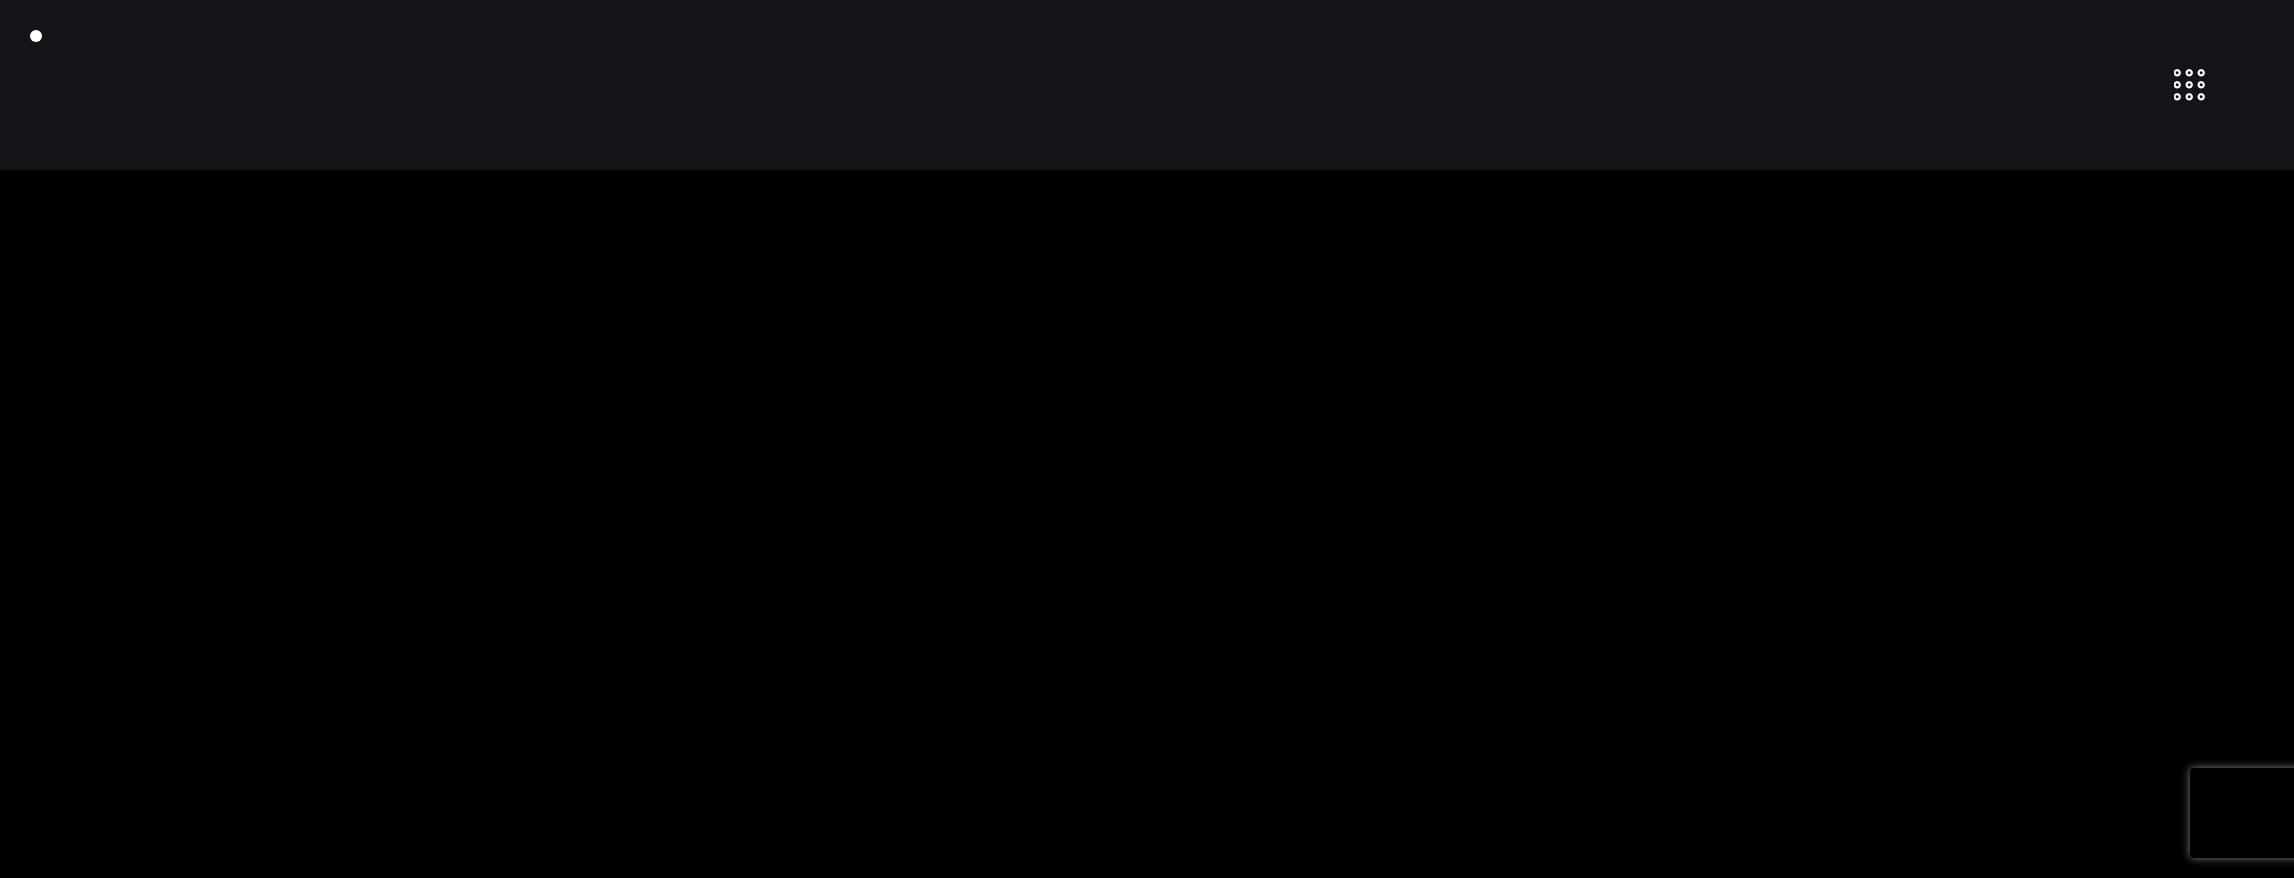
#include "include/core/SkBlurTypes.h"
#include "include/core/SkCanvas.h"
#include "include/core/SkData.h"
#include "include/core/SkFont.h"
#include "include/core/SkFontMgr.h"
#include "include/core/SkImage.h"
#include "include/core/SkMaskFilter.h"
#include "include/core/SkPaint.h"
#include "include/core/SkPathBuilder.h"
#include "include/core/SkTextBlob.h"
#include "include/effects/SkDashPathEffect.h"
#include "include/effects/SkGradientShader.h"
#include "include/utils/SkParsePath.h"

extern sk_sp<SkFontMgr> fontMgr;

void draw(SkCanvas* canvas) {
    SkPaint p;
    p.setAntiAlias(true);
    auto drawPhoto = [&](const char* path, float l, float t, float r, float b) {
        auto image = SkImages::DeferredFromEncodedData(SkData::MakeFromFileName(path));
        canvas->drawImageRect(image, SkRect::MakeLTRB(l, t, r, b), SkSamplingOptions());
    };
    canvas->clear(0xFF000000);
    p.setColor(0xFF131318);
    canvas->drawRect(SkRect::MakeLTRB(0, 0, 2294, 170), p);
    drawPhoto("media/1.png", 2174, 69, 2205, 101);
    p.setColor(0xFFFFFFFF);
    canvas->drawCircle(36, 36, 6, p);
    canvas->save();
    canvas->clipPath(SkPathBuilder(SkPathFillType::kEvenOdd).moveTo(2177, 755).lineTo(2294, 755).lineTo(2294, 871).lineTo(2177, 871).close().moveTo(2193, 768).lineTo(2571, 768).cubicTo(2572.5f, 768, 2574, 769.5f, 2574, 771).lineTo(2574, 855).cubicTo(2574, 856.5f, 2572.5f, 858, 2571, 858).lineTo(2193, 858).cubicTo(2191.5f, 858, 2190, 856.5f, 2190, 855).lineTo(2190, 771).cubicTo(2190, 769.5f, 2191.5f, 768, 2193, 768).close().detach(), true);
    p.setColor(0xFF808080);
    p.setMaskFilter(SkMaskFilter::MakeBlur(kNormal_SkBlurStyle, 4));
    canvas->drawRoundRect(SkRect::MakeLTRB(2190, 768, 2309, 858), 3, 3, p);
    p.setMaskFilter(nullptr);
    canvas->restore();
}
